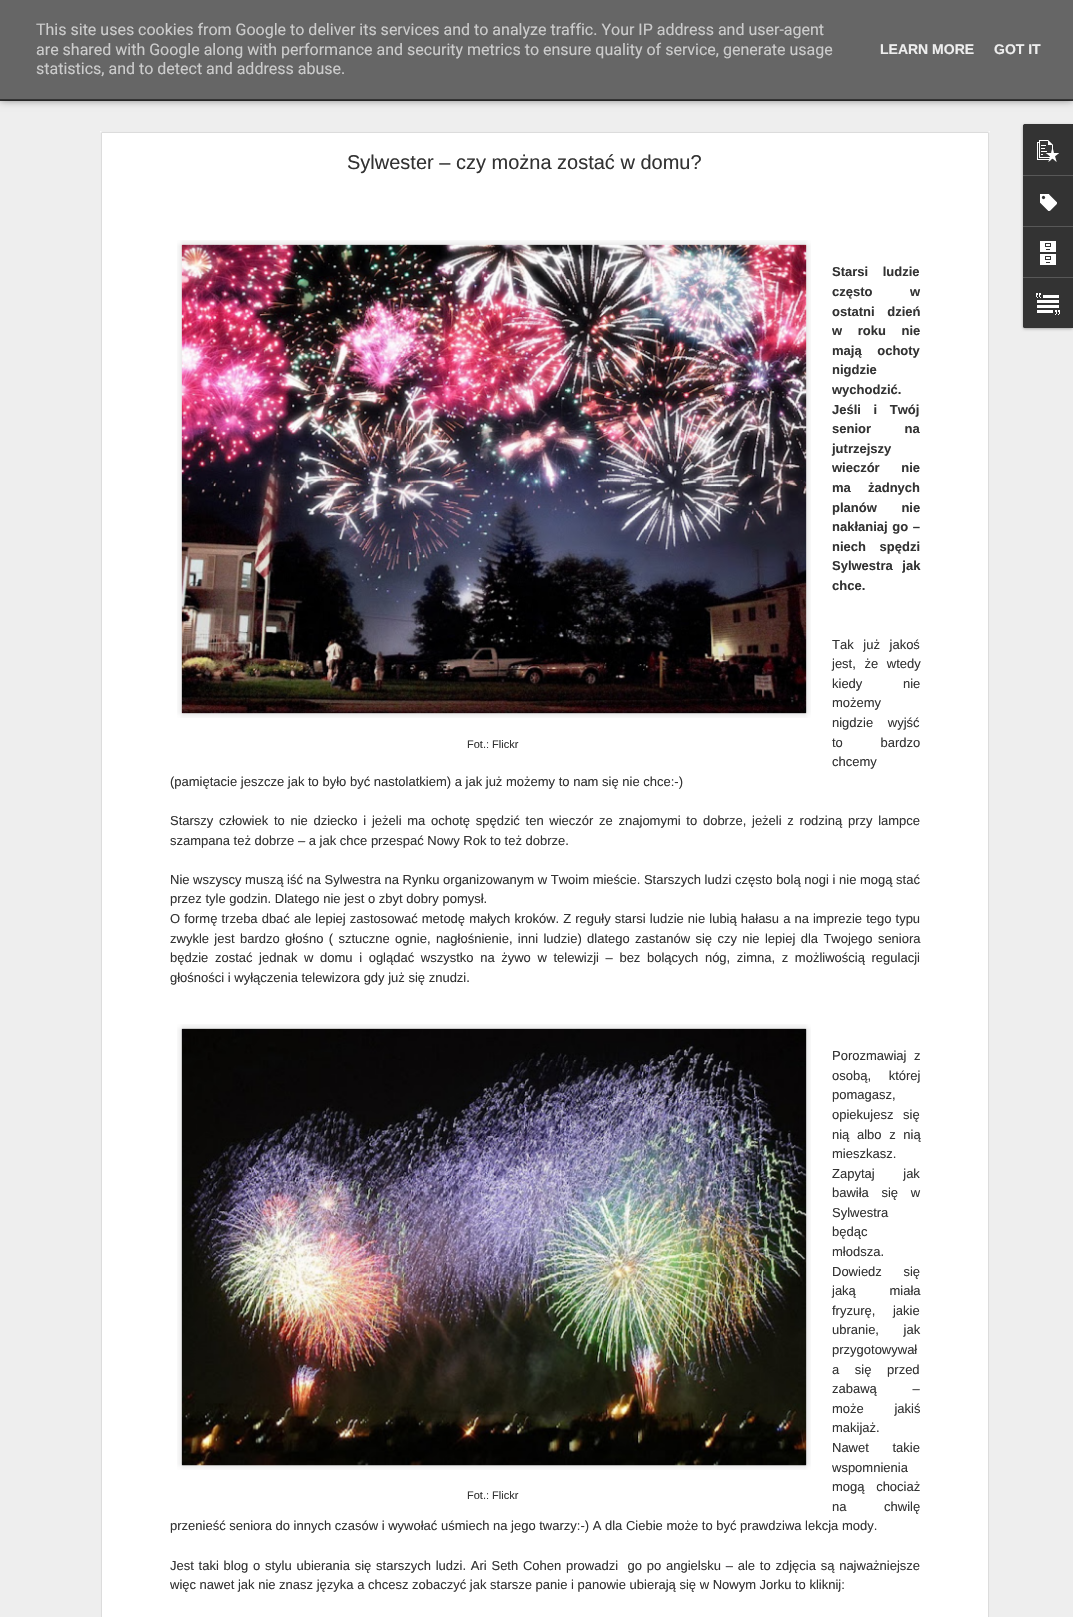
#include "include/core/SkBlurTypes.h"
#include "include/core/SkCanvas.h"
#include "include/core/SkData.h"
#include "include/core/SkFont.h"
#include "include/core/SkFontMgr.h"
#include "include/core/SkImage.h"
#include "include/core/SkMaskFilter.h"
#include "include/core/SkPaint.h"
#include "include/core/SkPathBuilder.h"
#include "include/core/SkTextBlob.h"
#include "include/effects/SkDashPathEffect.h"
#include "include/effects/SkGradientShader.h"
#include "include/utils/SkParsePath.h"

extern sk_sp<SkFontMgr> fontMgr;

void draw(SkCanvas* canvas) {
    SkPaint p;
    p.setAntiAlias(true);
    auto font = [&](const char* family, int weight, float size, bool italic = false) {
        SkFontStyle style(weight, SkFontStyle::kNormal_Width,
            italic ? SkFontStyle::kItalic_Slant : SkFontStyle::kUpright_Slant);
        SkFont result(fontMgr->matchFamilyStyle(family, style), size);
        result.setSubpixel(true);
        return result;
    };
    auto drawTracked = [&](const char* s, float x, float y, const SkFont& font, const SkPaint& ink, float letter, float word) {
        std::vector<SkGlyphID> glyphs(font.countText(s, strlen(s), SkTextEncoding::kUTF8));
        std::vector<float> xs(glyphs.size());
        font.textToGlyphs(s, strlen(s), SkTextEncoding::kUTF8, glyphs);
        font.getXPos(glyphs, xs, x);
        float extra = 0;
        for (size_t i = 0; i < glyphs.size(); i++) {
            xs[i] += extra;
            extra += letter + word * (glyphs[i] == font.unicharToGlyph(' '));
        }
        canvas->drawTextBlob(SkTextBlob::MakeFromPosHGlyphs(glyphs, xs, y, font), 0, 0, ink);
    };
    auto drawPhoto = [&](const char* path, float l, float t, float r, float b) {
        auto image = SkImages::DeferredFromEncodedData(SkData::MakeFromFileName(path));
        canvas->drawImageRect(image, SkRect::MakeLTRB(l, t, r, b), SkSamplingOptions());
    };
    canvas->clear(0xFF333333);
    p.setColor(0xFFEEEEEE);
    canvas->drawRect(SkRect::MakeLTRB(0, 101, 1073, 1617), p);
    p.setColor(0x80000000);
    p.setMaskFilter(SkMaskFilter::MakeBlur(kNormal_SkBlurStyle, 4));
    canvas->drawRect(SkRect::MakeLTRB(0, 65, 1073, 100), p);
    p.setMaskFilter(nullptr);
    p.setColor(0xFF666666);
    canvas->drawRect(SkRect::MakeLTRB(0, 0, 1073, 99), p);
    auto font1 = font("Roboto", 400, 16);
    p.setColor(0xFFCCCCCC);
    {
        const struct { const char* s; float x, y; } items[] = {
            {"This site uses cookies from Google to deliver its services and to analyze traffic. Your IP address and user-agent", 36, 35},
            {"are shared with Google along with performance and security metrics to ensure quality of service, generate usage", 36, 55},
            {"statistics, and to detect and address abuse.", 36, 74},
        };
        for (auto [s, x, y] : items) {
            canvas->drawString(s, x, y, font1, p);
        }
    }
    auto font2 = font("Liberation Sans", 700, 14);
    p.setColor(0xFFEEEEEE);
    canvas->drawString("LEARN MORE", 880, 54, font2, p);
    canvas->drawString("GOT IT", 994, 54, font2, p);
    p.setColor(0xFF333333);
    canvas->drawRect(SkRect::MakeLTRB(0, 99, 1073, 100), p);
    p.setColor(0xFFFFFFFF);
    canvas->drawRect(SkRect::MakeLTRB(100, 131, 990, 1617), p);
    drawPhoto("media/1.png", 100, 131, 990, 1617);
    auto font3 = font("Liberation Sans", 400, 20);
    p.setColor(0xFF333333);
    canvas->drawString("Sylwester – czy można zostać w domu?", 347, 169, font3, p);
    auto font4 = font("Liberation Sans", 700, 13);
    drawTracked("Starsi ludzie", 832, 276, font4, p, 0, 11);
    drawTracked("często w", 832, 296, font4, p, 0, 34);
    drawTracked("ostatni dzień", 832, 316, font4, p, 0, 9);
    drawTracked("w roku nie", 832, 335, font4, p, 0, 12);
    drawTracked("mają ochoty", 832, 355, font4, p, 0, 12);
    canvas->drawString("nigdzie", 832, 374, font4, p);
    canvas->drawString("wychodzić.", 832, 394, font4, p);
    drawTracked("Jeśli i Twój", 832, 414, font4, p, 0, 9);
    drawTracked("senior na", 832, 433, font4, p, 0, 30);
    canvas->drawString("jutrzejszy", 832, 453, font4, p);
    drawTracked("wieczór nie", 832, 472, font4, p, 0, 18);
    drawTracked("ma  żadnych", 832, 492, font4, p, 0, 5);
    drawTracked("planów nie", 832, 512, font4, p, 0, 21);
    drawTracked("nakłaniaj go –", 832, 531, font4, p, 0, 1);
    drawTracked("niech spędzi", 832, 551, font4, p, 0, 10);
    drawTracked("Sylwestra jak", 832, 570, font4, p, 0, 6);
    canvas->drawString("chce.", 832, 590, font4, p);
    auto font5 = font("Liberation Sans", 400, 13);
    drawTracked("Tak już jakoś", 832, 649, font5, p, 0, 6);
    drawTracked("jest, że wtedy", 832, 668, font5, p, 0, 5);
    drawTracked("kiedy nie", 832, 688, font5, p, 0, 37);
    canvas->drawString("możemy", 832, 707, font5, p);
    drawTracked("nigdzie wyjść", 832, 727, font5, p, 0, 11);
    drawTracked("to bardzo", 832, 747, font5, p, 0, 34);
    canvas->drawString("chcemy", 832, 766, font5, p);
    canvas->drawString("(pamiętacie jeszcze jak to było być nastolatkiem) a jak już możemy to nam się nie chce:-)", 170, 786, font5, p);
    drawPhoto("media/2.png", 177, 240, 811, 718);
    drawPhoto("media/3.png", 181, 244, 807, 714);
    auto font6 = font("Liberation Sans", 400, 11);
    canvas->drawString("Fot.: Flickr", 467, 748, font6, p);
    drawTracked("Starszy człowiek to nie dziecko i jeżeli ma ochotę spędzić ten wieczór ze znajomymi to dobrze, jeżeli z rodziną przy lampce", 170, 825, font5, p, 0, 2.1f);
    {
        const struct { const char* s; float x, y; } items[] = {
            {"szampana też dobrze – a jak chce przespać Nowy Rok to też dobrze.", 170, 845},
            {"Nie wszyscy muszą iść na Sylwestra na Rynku organizowanym w Twoim mieście. Starszych ludzi często bolą nogi i nie mogą stać", 170, 884},
            {"przez tyle godzin. Dlatego nie jest o zbyt dobry pomysł.", 170, 903},
        };
        for (auto [s, x, y] : items) {
            canvas->drawString(s, x, y, font5, p);
        }
    }
    drawTracked("O formę trzeba dbać ale lepiej zastosować metodę małych kroków. Z reguły starsi ludzie nie lubią hałasu a na imprezie tego typu", 170, 923, font5, p, 0, 0.45f);
    drawTracked("zwykle jest bardzo głośno ( sztuczne ognie, nagłośnienie, inni ludzie) dlatego zastanów się czy nie lepiej dla Twojego seniora", 170, 943, font5, p, 0, 1.75f);
    drawTracked("będzie zostać jednak w domu i oglądać wszystko na żywo w telewizji – bez bolących nóg, zimna, z możliwością regulacji", 170, 962, font5, p, 0, 3);
    canvas->drawString("głośności i wyłączenia telewizora gdy już się znudzi.", 170, 982, font5, p);
    drawTracked("Porozmawiaj z", 832, 1060, font5, p, 0, 4);
    drawTracked("osobą, której", 832, 1080, font5, p, 0, 14);
    canvas->drawString("pomagasz,", 832, 1099, font5, p);
    drawTracked("opiekujesz się", 832, 1119, font5, p, 0, 6);
    drawTracked("nią albo z nią", 832, 1139, font5, p, 0, 4);
    canvas->drawString("mieszkasz.", 832, 1158, font5, p);
    drawTracked("Zapytaj jak", 832, 1178, font5, p, 0, 25);
    drawTracked("bawiła się w", 832, 1197, font5, p, 0, 9);
    {
        const struct { const char* s; float x, y; } items[] = {
            {"Sylwestra", 832, 1217},
            {"będąc", 832, 1236},
            {"młodsza.", 832, 1256},
        };
        for (auto [s, x, y] : items) {
            canvas->drawString(s, x, y, font5, p);
        }
    }
    drawTracked("Dowiedz się", 832, 1276, font5, p, 0, 18);
    drawTracked("jaką miała", 832, 1295, font5, p, 0, 30);
    drawTracked("fryzurę, jakie", 832, 1315, font5, p, 0, 14);
    drawTracked("ubranie, jak", 832, 1334, font5, p, 0, 21);
    canvas->drawString("przygotowywał", 832, 1354, font5, p);
    drawTracked("a się przed", 832, 1374, font5, p, 0, 12);
    drawTracked("zabawą –", 832, 1393, font5, p, 0, 32);
    drawTracked("może jakiś", 832, 1413, font5, p, 0, 27);
    canvas->drawString("makijaż.", 832, 1432, font5, p);
    drawTracked("Nawet takie", 832, 1452, font5, p, 0, 20);
    canvas->drawString("wspomnienia", 832, 1472, font5, p);
    drawTracked("mogą chociaż", 832, 1491, font5, p, 0, 8);
    drawTracked("na chwilę", 832, 1511, font5, p, 0, 34);
    canvas->drawString("przenieść seniora do innych czasów i wywołać uśmiech na jego twarzy:-) A dla Ciebie może to być prawdziwa lekcja mody.", 170, 1530, font5, p);
    drawPhoto("media/4.png", 177, 1024, 811, 1470);
    drawPhoto("media/5.png", 181, 1028, 807, 1466);
    canvas->drawString("Fot.: Flickr", 467, 1499, font6, p);
    drawTracked("Jest taki blog o stylu ubierania się starszych ludzi. Ari Seth Cohen prowadzi  go po angielsku – ale to zdjęcia są najważniejsze", 170, 1570, font5, p, 0, 1.15f);
    canvas->drawString("więc nawet jak nie znasz języka a chcesz zobaczyć jak starsze panie i panowie ubierają się w Nowym Jorku to kliknij:", 170, 1589, font5, p);
    p.setColor(0x4D000000);
    p.setMaskFilter(SkMaskFilter::MakeBlur(kNormal_SkBlurStyle, 1.5f));
    canvas->drawRoundRect(SkRect::MakeLTRB(1023, 125, 1073, 329), 2, 2, p);
    p.setMaskFilter(nullptr);
    p.setColor(0xFF333333);
    canvas->drawPath(SkPathBuilder().moveTo(1025, 124).lineTo(1073, 124).lineTo(1073, 328).lineTo(1025, 328).cubicTo(1024, 328, 1023, 327, 1023, 326).lineTo(1023, 126).cubicTo(1023, 125, 1024, 124, 1025, 124).close().detach(), p);
    canvas->drawPath(SkPathBuilder().moveTo(1025, 124).lineTo(1073, 124).lineTo(1073, 175).lineTo(1023, 175).lineTo(1023, 126).cubicTo(1023, 125, 1024, 124, 1025, 124).close().detach(), p);
    drawPhoto("media/6.png", 1037, 140, 1059, 162);
    p.setColor(0xFF585858);
    canvas->drawRect(SkRect::MakeLTRB(1023, 175, 1073, 176), p);
    drawPhoto("media/7.png", 1040, 194, 1057, 211);
    canvas->drawRect(SkRect::MakeLTRB(1023, 226, 1073, 227), p);
    drawPhoto("media/8.png", 1040, 241, 1056, 265);
    p.setColor(0xFF333333);
    canvas->drawPath(SkPathBuilder().moveTo(1023, 277).lineTo(1073, 277).lineTo(1073, 328).lineTo(1025, 328).cubicTo(1024, 328, 1023, 327, 1023, 326).close().detach(), p);
    p.setColor(0xFF585858);
    canvas->drawRect(SkRect::MakeLTRB(1023, 277, 1073, 278), p);
    drawPhoto("media/9.png", 1036, 293, 1060, 315);
}
